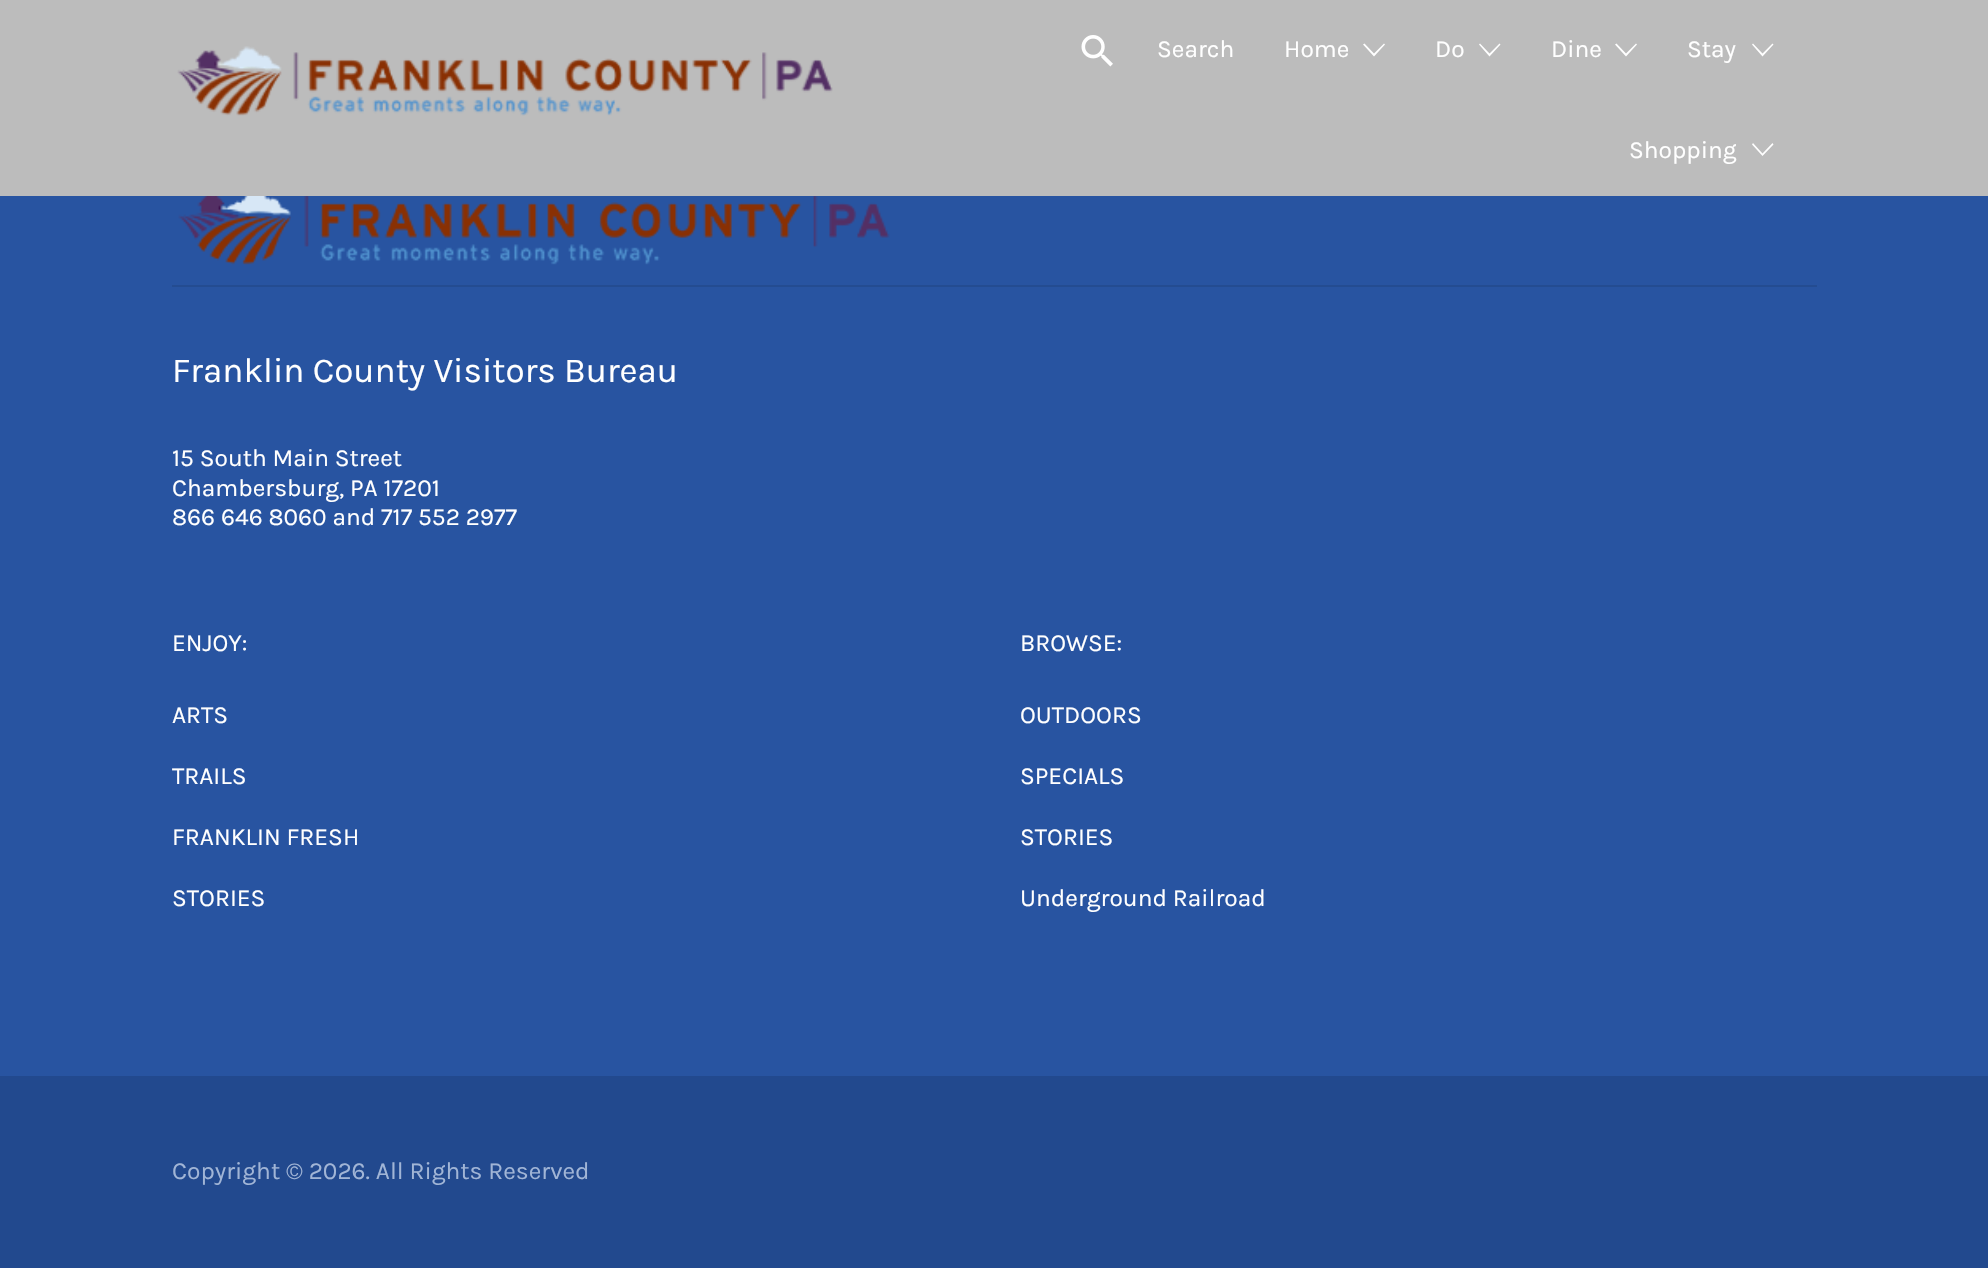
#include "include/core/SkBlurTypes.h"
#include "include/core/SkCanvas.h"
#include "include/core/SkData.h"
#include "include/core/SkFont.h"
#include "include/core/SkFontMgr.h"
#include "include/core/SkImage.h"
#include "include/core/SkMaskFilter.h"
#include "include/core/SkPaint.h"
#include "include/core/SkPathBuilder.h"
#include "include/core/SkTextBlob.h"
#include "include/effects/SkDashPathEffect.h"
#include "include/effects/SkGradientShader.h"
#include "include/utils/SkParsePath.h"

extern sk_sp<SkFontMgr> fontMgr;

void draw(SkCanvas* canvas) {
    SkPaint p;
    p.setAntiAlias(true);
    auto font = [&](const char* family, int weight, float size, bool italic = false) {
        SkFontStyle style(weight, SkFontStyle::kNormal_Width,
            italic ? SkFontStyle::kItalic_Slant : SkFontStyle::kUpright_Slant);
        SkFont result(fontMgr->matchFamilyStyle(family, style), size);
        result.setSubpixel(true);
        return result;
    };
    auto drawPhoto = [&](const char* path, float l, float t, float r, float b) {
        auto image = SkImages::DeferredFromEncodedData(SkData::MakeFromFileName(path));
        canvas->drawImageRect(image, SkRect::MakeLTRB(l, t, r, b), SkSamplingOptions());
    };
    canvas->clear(0xFF2854A1);
    p.setColor(0xFFBCBCBC);
    canvas->drawRect(SkRect::MakeLTRB(0, 0, 1988, 196), p);
    drawPhoto("media/1.png", 177, 46, 833, 116);
    drawPhoto("media/2.png", 1081, 35, 1113, 67);
    auto font1 = font("Karla", 400, 24.5f);
    p.setColor(0xFFFFFFFF);
    canvas->drawString("Search", 1157, 57, font1, p);
    canvas->drawString("Home", 1284, 57, font1, p);
    canvas->drawPath(SkPathBuilder().moveTo(1384, 43.5f).lineTo(1385, 44.5f).lineTo(1374, 56.5f).lineTo(1363, 44.5f).lineTo(1364.5f, 43.5f).lineTo(1374, 53.5f).close().detach(), p);
    canvas->drawString("Do", 1435, 57, font1, p);
    canvas->drawPath(SkPathBuilder().moveTo(1499.5f, 43.5f).lineTo(1500.5f, 44.5f).lineTo(1489.5f, 56.5f).lineTo(1479, 44.5f).lineTo(1480, 43.5f).lineTo(1489.5f, 53.5f).close().detach(), p);
    canvas->drawString("Dine", 1551, 57, font1, p);
    canvas->drawPath(SkPathBuilder().moveTo(1636, 43.5f).lineTo(1637, 44.5f).lineTo(1626, 56.5f).lineTo(1615, 44.5f).lineTo(1616.5f, 43.5f).lineTo(1626, 53.5f).close().detach(), p);
    canvas->drawString("Stay", 1687, 57, font1, p);
    canvas->drawPath(SkPathBuilder().moveTo(1772.5f, 43.5f).lineTo(1773.5f, 44.5f).lineTo(1762.5f, 56.5f).lineTo(1752, 44.5f).lineTo(1753, 43.5f).lineTo(1762.5f, 53.5f).close().detach(), p);
    canvas->drawString("Shopping", 1629, 158, font1, p);
    canvas->drawPath(SkPathBuilder().moveTo(1772.5f, 143).lineTo(1773.5f, 144.5f).lineTo(1762.5f, 156).lineTo(1752, 144.5f).lineTo(1753, 143).lineTo(1762.5f, 153.5f).close().detach(), p);
    drawPhoto("media/3.png", 178, 196, 890, 265);
    p.setColor(0xFF244C91);
    canvas->drawRect(SkRect::MakeLTRB(172, 285, 1817, 287), p);
    auto font2 = font("Karla", 400, 35);
    p.setColor(0xFFFFFFFF);
    canvas->drawString("Franklin County Visitors Bureau", 172, 382, font2, p);
    {
        const struct { const char* s; float x, y; } items[] = {
            {"15 South Main Street", 172, 466},
            {"Chambersburg, PA 17201", 172, 496},
            {"866 646 8060 and 717 552 2977", 172, 525},
            {"ENJOY:", 172, 651},
            {"ARTS", 172, 723},
            {"TRAILS", 172, 784},
            {"FRANKLIN FRESH", 172, 845},
            {"STORIES", 172, 906},
            {"BROWSE:", 1020, 651},
            {"OUTDOORS", 1020, 723},
            {"SPECIALS", 1020, 784},
            {"STORIES", 1020, 845},
            {"Underground Railroad", 1020, 906},
        };
        for (auto [s, x, y] : items) {
            canvas->drawString(s, x, y, font1, p);
        }
    }
    p.setColor(0xFF22498E);
    canvas->drawRect(SkRect::MakeLTRB(0, 1076, 1988, 1268), p);
    p.setColor(0xFFA1B5D6);
    canvas->drawString("Copyright © 2026. All Rights Reserved", 172, 1179, font1, p);
}
